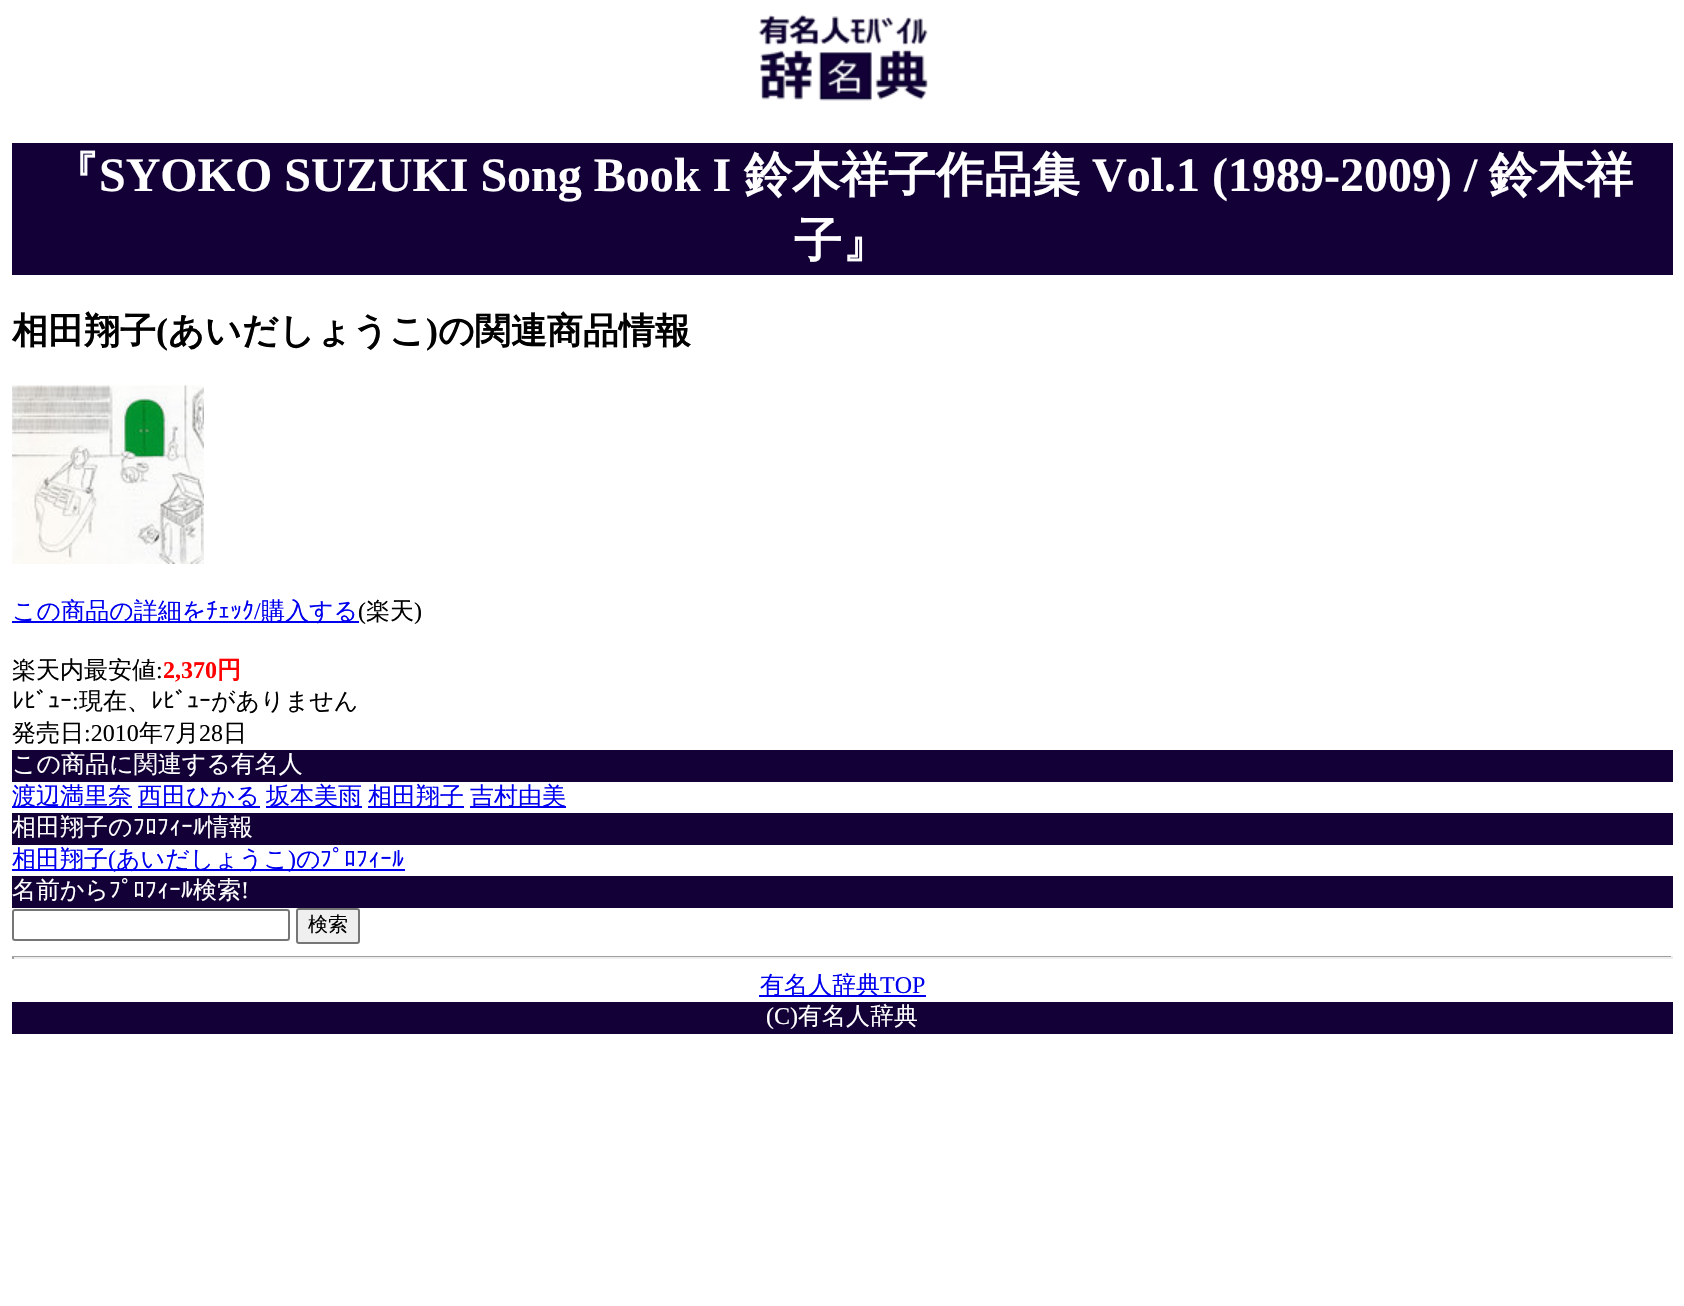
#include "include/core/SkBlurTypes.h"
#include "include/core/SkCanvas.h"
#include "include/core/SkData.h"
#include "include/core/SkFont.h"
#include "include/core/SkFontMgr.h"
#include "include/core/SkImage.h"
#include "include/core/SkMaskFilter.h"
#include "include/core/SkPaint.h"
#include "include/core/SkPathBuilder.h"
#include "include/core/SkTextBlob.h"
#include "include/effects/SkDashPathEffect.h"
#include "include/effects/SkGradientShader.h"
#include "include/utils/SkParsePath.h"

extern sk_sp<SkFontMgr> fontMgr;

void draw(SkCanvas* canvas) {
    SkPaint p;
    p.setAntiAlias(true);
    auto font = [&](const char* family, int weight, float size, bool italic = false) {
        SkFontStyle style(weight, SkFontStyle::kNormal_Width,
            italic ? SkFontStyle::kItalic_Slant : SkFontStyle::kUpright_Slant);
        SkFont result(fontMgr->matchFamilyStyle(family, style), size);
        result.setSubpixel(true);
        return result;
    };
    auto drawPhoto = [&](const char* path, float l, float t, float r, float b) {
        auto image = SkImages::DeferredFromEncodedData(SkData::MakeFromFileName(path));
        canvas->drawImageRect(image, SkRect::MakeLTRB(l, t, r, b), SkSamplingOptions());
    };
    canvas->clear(0xFFFFFFFF);
    drawPhoto("media/1.png", 758, 14, 928, 101);
    p.setColor(0xFF120037);
    canvas->drawRect(SkRect::MakeLTRB(12, 143, 1673, 275), p);
    auto font1 = font("WenQuanYi Zen Hei", 700, 48);
    p.setColor(0xFFFFFFFF);
    canvas->drawString("『", 51, 191, font1, p);
    auto font2 = font("Liberation Serif", 700, 48);
    canvas->drawString("SYOKO SUZUKI Song Book I", 99, 191, font2, p);
    canvas->drawString("鈴木祥子作品集", 744, 191, font1, p);
    canvas->drawString("Vol.1 (1989-2009) /", 1092, 191, font2, p);
    canvas->drawString("鈴木祥", 1489, 191, font1, p);
    canvas->drawString("子』", 794, 257, font1, p);
    auto font3 = font("WenQuanYi Zen Hei", 700, 36);
    p.setColor(0xFF000000);
    canvas->drawString("相田翔子", 12, 343, font3, p);
    auto font4 = font("Liberation Serif", 700, 36);
    canvas->drawString("(", 156, 343, font4, p);
    canvas->drawString("あいだしょうこ", 168, 343, font3, p);
    canvas->drawString(")", 426, 343, font4, p);
    canvas->drawString("の関連商品情報", 438, 343, font3, p);
    drawPhoto("media/2.png", 12, 385, 204, 564);
    p.setColor(0xFF0000EE);
    canvas->drawRect(SkRect::MakeLTRB(12, 621, 359, 623), p);
    auto font5 = font("WenQuanYi Zen Hei", 500, 24);
    canvas->drawString("この商品の詳細を", 12, 619, font5, p);
    auto font6 = font("IPAPGothic", 400, 24);
    canvas->drawString("ﾁｪｯｸ", 206, 619, font6, p);
    auto font7 = font("Liberation Serif", 400, 24);
    canvas->drawString("/", 254, 619, font7, p);
    canvas->drawString("購入する", 261, 619, font5, p);
    p.setColor(0xFF000000);
    canvas->drawString("(", 358, 619, font7, p);
    canvas->drawString("楽天", 366, 619, font5, p);
    canvas->drawString(")", 414, 619, font7, p);
    canvas->drawString("楽天内最安値", 12, 678, font5, p);
    canvas->drawString(":", 156, 678, font7, p);
    auto font8 = font("Liberation Serif", 700, 24);
    p.setColor(0xFFFF0000);
    canvas->drawString("2,370", 163, 678, font8, p);
    auto font9 = font("WenQuanYi Zen Hei", 700, 24);
    canvas->drawString("円", 217, 678, font9, p);
    p.setColor(0xFF000000);
    canvas->drawString("ﾚﾋﾞｭｰ", 12, 709, font6, p);
    canvas->drawString(":", 72, 709, font7, p);
    canvas->drawString("現在、", 79, 709, font5, p);
    canvas->drawString("ﾚﾋﾞｭｰ", 151, 709, font6, p);
    canvas->drawString("がありません", 211, 709, font5, p);
    canvas->drawString("発売日", 12, 741, font5, p);
    canvas->drawString(":2010", 84, 741, font7, p);
    canvas->drawString("年", 139, 741, font5, p);
    canvas->drawString("7", 163, 741, font7, p);
    canvas->drawString("月", 175, 741, font5, p);
    canvas->drawString("28", 199, 741, font7, p);
    canvas->drawString("日", 223, 741, font5, p);
    p.setColor(0xFF120037);
    canvas->drawRect(SkRect::MakeLTRB(12, 750, 1673, 782), p);
    p.setColor(0xFFFFFFFF);
    canvas->drawString("この商品に関連する有名人", 12, 772, font5, p);
    p.setColor(0xFF0000EE);
    canvas->drawRect(SkRect::MakeLTRB(12, 806, 132, 808), p);
    canvas->drawString("渡辺満里奈", 12, 804, font5, p);
    canvas->drawRect(SkRect::MakeLTRB(138, 806, 260, 808), p);
    canvas->drawString("西田ひかる", 138, 804, font5, p);
    canvas->drawRect(SkRect::MakeLTRB(266, 806, 362, 808), p);
    canvas->drawString("坂本美雨", 266, 804, font5, p);
    canvas->drawRect(SkRect::MakeLTRB(368, 806, 464, 808), p);
    canvas->drawString("相田翔子", 368, 804, font5, p);
    canvas->drawRect(SkRect::MakeLTRB(470, 806, 566, 808), p);
    canvas->drawString("吉村由美", 470, 804, font5, p);
    p.setColor(0xFF120037);
    canvas->drawRect(SkRect::MakeLTRB(12, 813, 1673, 845), p);
    p.setColor(0xFFFFFFFF);
    canvas->drawString("相田翔子の", 12, 835, font5, p);
    canvas->drawString("ﾌﾛﾌｨｰﾙ", 133, 835, font6, p);
    canvas->drawString("情報", 205, 835, font5, p);
    p.setColor(0xFF0000EE);
    canvas->drawRect(SkRect::MakeLTRB(12, 869, 405, 871), p);
    canvas->drawString("相田翔子", 12, 867, font5, p);
    canvas->drawString("(", 108, 867, font7, p);
    canvas->drawString("あいだしょうこ", 116, 867, font5, p);
    canvas->drawString(")", 288, 867, font7, p);
    canvas->drawString("の", 296, 867, font5, p);
    canvas->drawString("ﾌﾟﾛﾌｨｰﾙ", 320, 867, font6, p);
    p.setColor(0xFF120037);
    canvas->drawRect(SkRect::MakeLTRB(12, 876, 1673, 908), p);
    p.setColor(0xFFFFFFFF);
    canvas->drawString("名前から", 12, 898, font5, p);
    canvas->drawString("ﾌﾟﾛﾌｨｰﾙ", 109, 898, font6, p);
    canvas->drawString("検索", 193, 898, font5, p);
    canvas->drawString("!", 241, 898, font7, p);
    p.setStyle(SkPaint::kStroke_Style);
    p.setStrokeWidth(2);
    p.setColor(0xFF767676);
    canvas->drawRoundRect(SkRect::MakeLTRB(13, 910, 289, 940), 2, 2, p);
    p.setStyle(SkPaint::kFill_Style);
    p.setColor(0xFFEFEFEF);
    canvas->drawRoundRect(SkRect::MakeLTRB(297, 909, 359, 943), 2, 2, p);
    p.setStyle(SkPaint::kStroke_Style);
    p.setColor(0xFF767676);
    canvas->drawRoundRect(SkRect::MakeLTRB(297, 909, 359, 943), 2, 2, p);
    auto font10 = font("WenQuanYi Zen Hei", 500, 20);
    p.setStyle(SkPaint::kFill_Style);
    p.setColor(0xFF000000);
    canvas->drawString("検索", 308, 931, font10, p);
    {
        const struct { float l, t, r, b; SkColor color; } items[] = {
            {12, 956, 1673, 957, 0xFF9F9F9F},
            {1671, 956, 1673, 959, 0xFFEEEEEE},
            {12, 957, 1673, 959, 0xFFEEEEEE},
            {12, 956, 14, 959, 0xFF9F9F9F},
            {759, 995, 926, 997, 0xFF0000EE},
        };
        for (auto [l, t, r, b, color] : items) {
            p.setColor(color);
            canvas->drawRect(SkRect::MakeLTRB(l, t, r, b), p);
        }
    }
    canvas->drawString("有名人辞典", 760, 993, font5, p);
    canvas->drawString("TOP", 880, 993, font7, p);
    p.setColor(0xFF120037);
    canvas->drawRect(SkRect::MakeLTRB(12, 1002, 1673, 1034), p);
    p.setColor(0xFFFFFFFF);
    canvas->drawString("(C)", 766, 1024, font7, p);
    canvas->drawString("有名人辞典", 798, 1024, font5, p);
}
